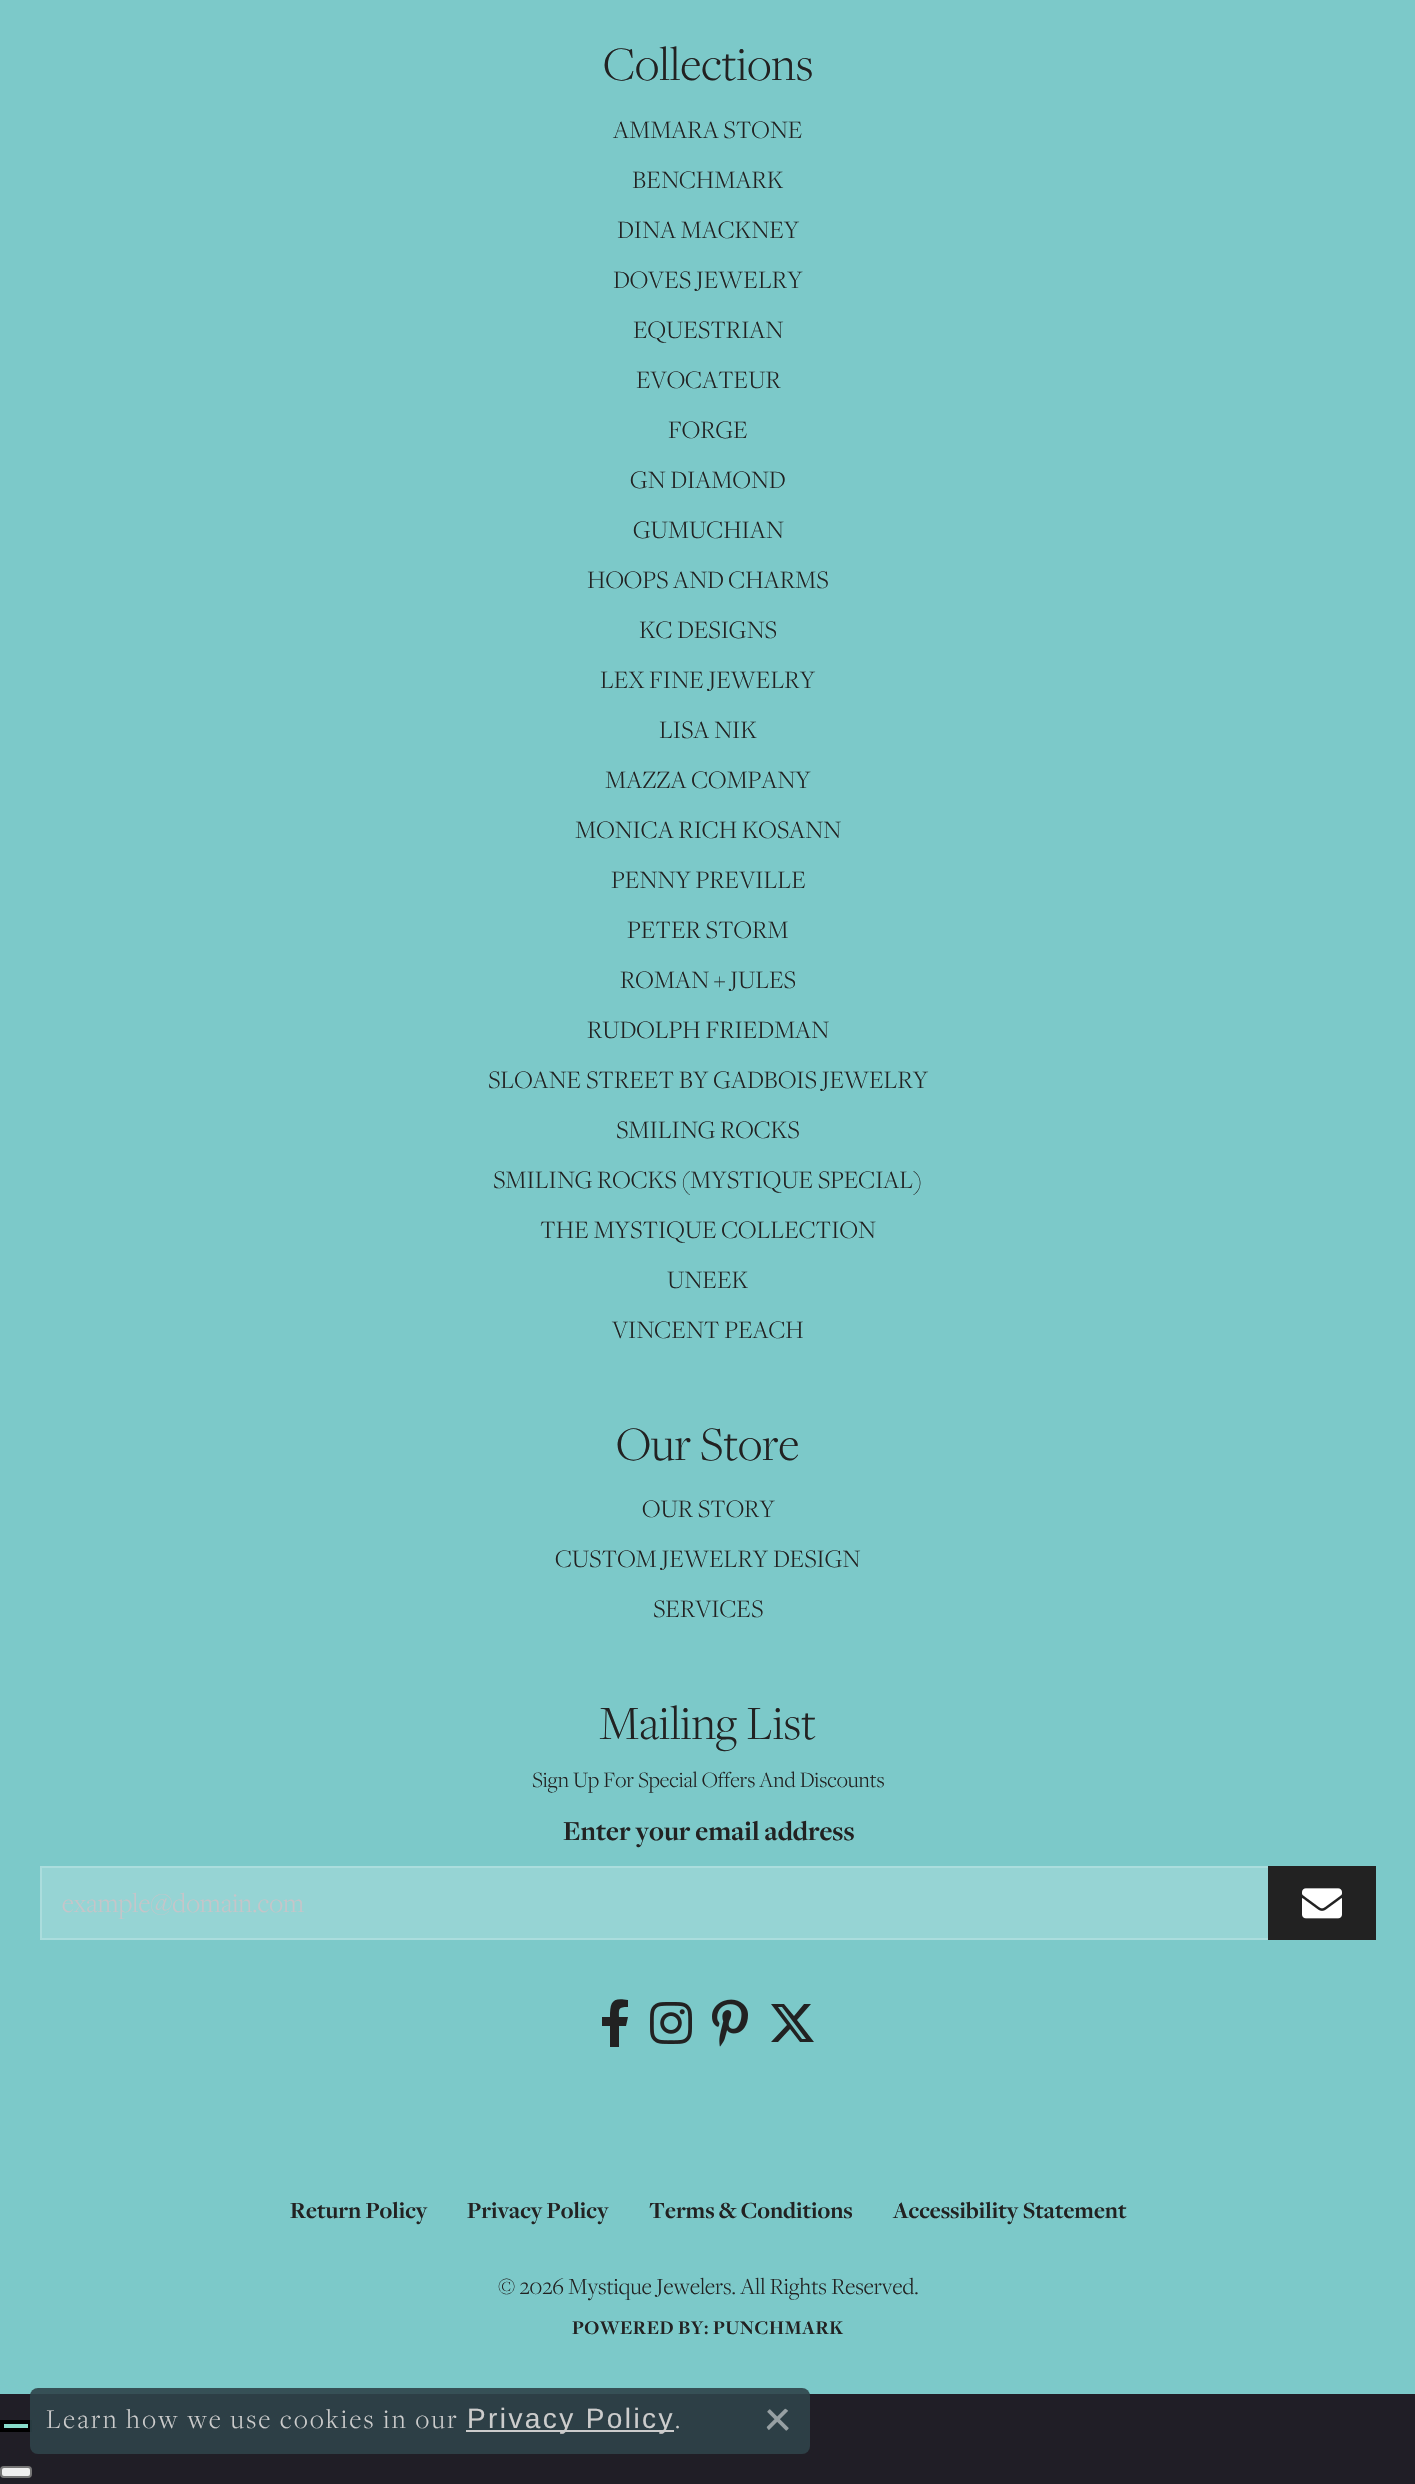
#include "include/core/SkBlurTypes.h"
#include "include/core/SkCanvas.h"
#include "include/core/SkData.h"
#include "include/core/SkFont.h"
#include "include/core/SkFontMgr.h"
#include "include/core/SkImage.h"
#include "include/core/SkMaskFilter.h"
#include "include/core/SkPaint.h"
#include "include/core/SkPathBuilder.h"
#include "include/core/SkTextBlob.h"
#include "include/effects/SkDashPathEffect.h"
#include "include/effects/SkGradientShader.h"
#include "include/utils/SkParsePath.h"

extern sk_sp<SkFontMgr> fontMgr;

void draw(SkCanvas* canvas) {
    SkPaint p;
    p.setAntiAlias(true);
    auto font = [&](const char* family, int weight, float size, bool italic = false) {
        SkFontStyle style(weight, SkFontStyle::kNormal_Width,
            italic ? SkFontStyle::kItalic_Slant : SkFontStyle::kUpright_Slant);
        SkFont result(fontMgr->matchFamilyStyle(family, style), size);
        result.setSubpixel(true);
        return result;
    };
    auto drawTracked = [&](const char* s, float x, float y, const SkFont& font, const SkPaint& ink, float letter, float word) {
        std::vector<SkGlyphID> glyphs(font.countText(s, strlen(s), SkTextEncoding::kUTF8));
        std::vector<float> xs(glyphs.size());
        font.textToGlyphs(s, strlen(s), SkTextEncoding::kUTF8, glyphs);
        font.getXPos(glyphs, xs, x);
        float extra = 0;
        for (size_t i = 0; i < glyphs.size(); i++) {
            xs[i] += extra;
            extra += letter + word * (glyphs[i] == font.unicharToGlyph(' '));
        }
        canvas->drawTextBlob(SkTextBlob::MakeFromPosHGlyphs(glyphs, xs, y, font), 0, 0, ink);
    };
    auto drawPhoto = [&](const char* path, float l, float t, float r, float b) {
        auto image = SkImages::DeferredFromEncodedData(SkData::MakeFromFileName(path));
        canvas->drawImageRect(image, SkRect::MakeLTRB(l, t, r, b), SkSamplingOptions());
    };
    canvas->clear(0xFF201E26);
    p.setColor(0xFF7CC9C9);
    canvas->drawRect(SkRect::MakeLTRB(0, 0, 1415, 2394), p);
    auto font1 = font("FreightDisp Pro", 300, 49.5f);
    p.setColor(0xFF222222);
    canvas->drawString("Collections", 603, 80, font1, p);
    auto font2 = font("FreightDisp Pro", 300, 26);
    {
        const struct { const char* s; float x, y; } items[] = {
            {"AMMARA STONE", 613, 138},
            {"BENCHMARK", 632, 188},
            {"DINA MACKNEY", 617, 238},
            {"DOVES JEWELRY", 613, 288},
            {"EQUESTRIAN", 633, 338},
            {"EVOCATEUR", 636, 388},
            {"FORGE", 668, 438},
            {"GN DIAMOND", 630, 488},
            {"GUMUCHIAN", 633, 538},
            {"HOOPS AND CHARMS", 587, 588},
            {"KC DESIGNS", 639, 638},
            {"LEX FINE JEWELRY", 600, 688},
            {"LISA NIK", 659, 738},
            {"MAZZA COMPANY", 605, 788},
            {"MONICA RICH KOSANN", 575, 838},
            {"PENNY PREVILLE", 611, 888},
            {"PETER STORM", 627, 938},
            {"ROMAN + JULES", 620, 988},
            {"RUDOLPH FRIEDMAN", 587, 1038},
            {"SLOANE STREET BY GADBOIS JEWELRY", 488, 1088},
            {"SMILING ROCKS", 616, 1138},
            {"SMILING ROCKS (MYSTIQUE SPECIAL)", 493, 1188},
            {"THE MYSTIQUE COLLECTION", 540, 1238},
            {"UNEEK", 667, 1288},
            {"VINCENT PEACH", 612, 1338},
        };
        for (auto [s, x, y] : items) {
            canvas->drawString(s, x, y, font2, p);
        }
    }
    canvas->drawString("Our Store", 616, 1460, font1, p);
    {
        const struct { const char* s; float x, y; } items[] = {
            {"OUR STORY", 642, 1517},
            {"CUSTOM JEWELRY DESIGN", 555, 1567},
            {"SERVICES", 653, 1617},
        };
        for (auto [s, x, y] : items) {
            canvas->drawString(s, x, y, font2, p);
        }
    }
    canvas->drawString("Mailing List", 599, 1739, font1, p);
    auto font3 = font("FreightDisp Pro", 300, 22.75f);
    canvas->drawString("Sign Up For Special Offers And Discounts", 532, 1787, font3, p);
    auto font4 = font("FreightDisp Pro", 700, 28.25f);
    canvas->drawString("Enter your email address", 563, 1840, font4, p);
    p.setColor(0xFF96D4D4);
    canvas->drawRect(SkRect::MakeLTRB(41, 1867, 1269, 1939), p);
    p.setStyle(SkPaint::kStroke_Style);
    p.setStrokeWidth(2);
    p.setColor(0xFFABDDDD);
    canvas->drawRect(SkRect::MakeLTRB(41, 1867, 1269, 1939), p);
    auto font5 = font("FreightDisp Pro", 300, 28.25f);
    p.setStyle(SkPaint::kFill_Style);
    p.setColor(0xFFC6C5C9);
    canvas->drawString("example@domain.com", 62, 1912, font5, p);
    p.setColor(0xFF222222);
    canvas->drawRect(SkRect::MakeLTRB(1268, 1866, 1376, 1940), p);
    drawPhoto("media/1.png", 1302, 1888, 1342, 1919);
    canvas->drawPath(SkPathBuilder().moveTo(626, 2026).lineTo(628, 2017).lineTo(619, 2017).cubicTo(619, 2009, 618, 2007, 628, 2007).lineTo(628, 2000).cubicTo(612, 1997, 610, 2002, 610, 2017).lineTo(602, 2017).lineTo(602, 2026).lineTo(610, 2026).lineTo(610, 2047).lineTo(619, 2047).lineTo(619, 2026).close().detach(), p);
    drawPhoto("media/2.png", 650, 2002, 692, 2044);
    drawPhoto("media/3.png", 712, 1999, 748, 2047);
    canvas->drawPath(SkPathBuilder().moveTo(804, 2004).lineTo(811, 2004).lineTo(797, 2020).lineTo(814, 2042).lineTo(800, 2042).lineTo(790, 2029).lineTo(778, 2042).lineTo(771, 2042).lineTo(787, 2025).lineTo(771, 2004).lineTo(784, 2004).lineTo(794, 2016).close().moveTo(802, 2039).lineTo(806, 2039).lineTo(782, 2007).lineTo(778, 2007).close().detach(), p);
    auto font6 = font("FreightDisp Pro", 700, 24);
    {
        const struct { const char* s; float x, y; } items[] = {
            {"Return Policy", 290, 2218},
            {"Privacy Policy", 467, 2218},
            {"Terms & Conditions", 649, 2218},
            {"Accessibility Statement", 893, 2218},
        };
        for (auto [s, x, y] : items) {
            canvas->drawString(s, x, y, font6, p);
        }
    }
    auto font7 = font("FreightDisp Pro", 300, 24);
    canvas->drawString("© 2026 Mystique Jewelers. All Rights Reserved.", 498, 2294, font7, p);
    auto font8 = font("FreightDisp Pro", 700, 20);
    drawTracked("POWERED BY: PUNCHMARK", 572, 2334, font8, p, 0.5f, 0);
    p.setColor(0xFF88DCC9);
    canvas->drawRect(SkRect::MakeLTRB(2, 2422, 30, 2430), p);
    p.setStyle(SkPaint::kStroke_Style);
    p.setStrokeWidth(4);
    p.setColor(0xFF000000);
    canvas->drawRect(SkRect::MakeLTRB(2, 2422, 30, 2430), p);
    p.setStyle(SkPaint::kFill_Style);
    p.setColor(0xE62E4249);
    canvas->drawRoundRect(SkRect::MakeLTRB(30, 2388, 810, 2454), 8, 8, p);
    auto font9 = font("FreightDisp Pro", 300, 28);
    p.setColor(0xFFCCCCCC);
    drawTracked("Learn how we use cookies in our", 46, 2428, font9, p, 2.4f, 0);
    canvas->drawRect(SkRect::MakeLTRB(466, 2430, 674, 2432), p);
    auto font10 = font("Liberation Sans", 400, 28);
    drawTracked("Privacy Policy", 467, 2428, font10, p, 2.4f, 0);
    drawTracked(".", 675, 2428, font9, p, 2.4f, 0);
    drawPhoto("media/4.png", 766, 2408, 789, 2431);
    p.setColor(0xFFEFEFEF);
    canvas->drawRoundRect(SkRect::MakeLTRB(1, 2467, 31, 2477), 3, 3, p);
    p.setStyle(SkPaint::kStroke_Style);
    p.setStrokeWidth(2);
    p.setColor(0xFF767676);
    canvas->drawRoundRect(SkRect::MakeLTRB(1, 2467, 31, 2477), 3, 3, p);
}
